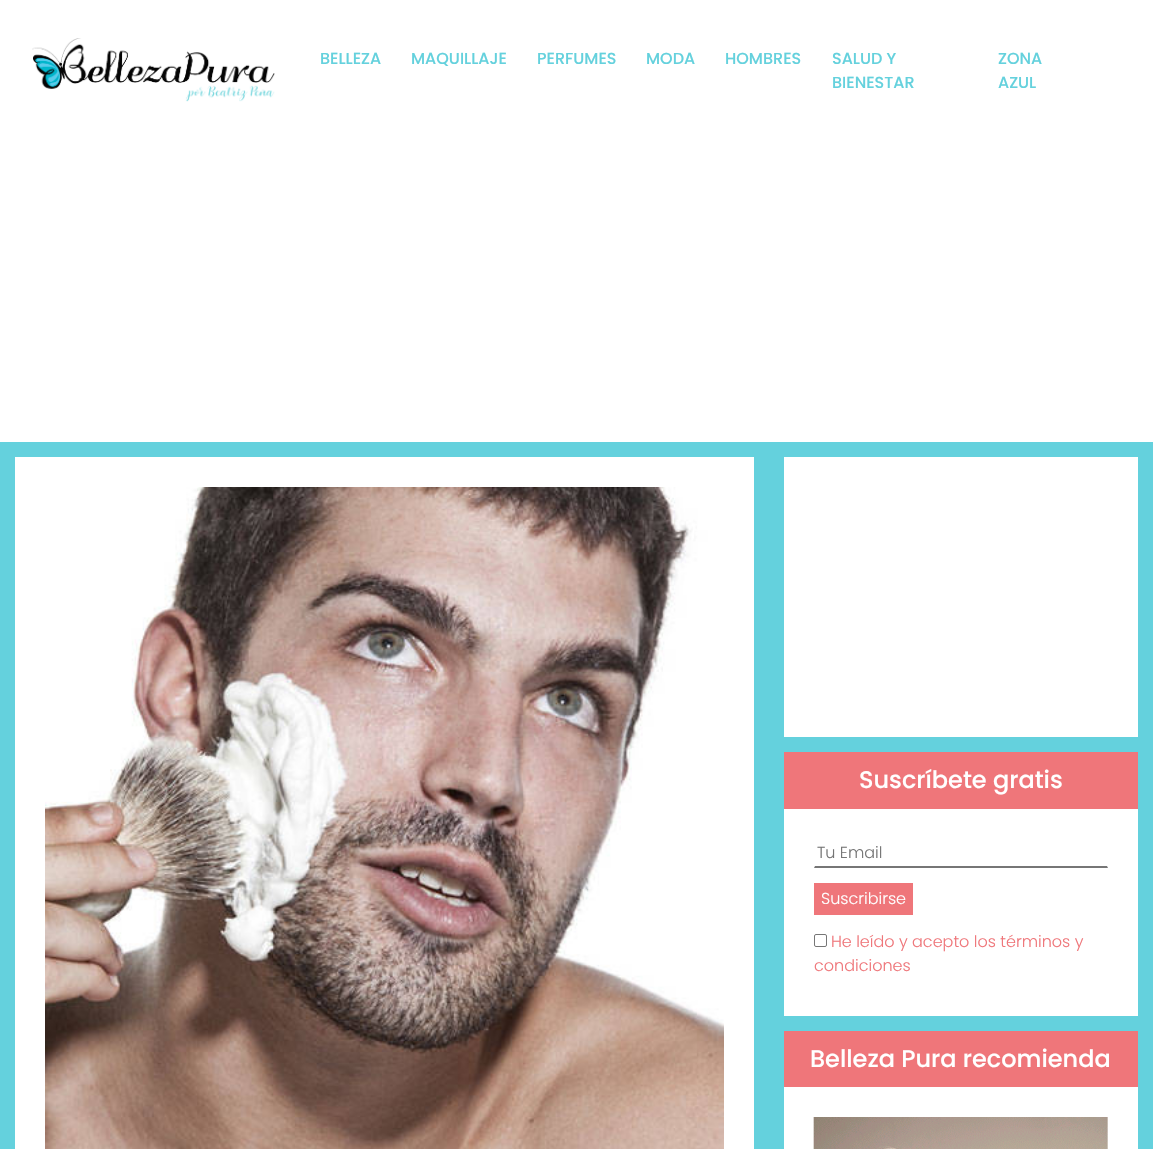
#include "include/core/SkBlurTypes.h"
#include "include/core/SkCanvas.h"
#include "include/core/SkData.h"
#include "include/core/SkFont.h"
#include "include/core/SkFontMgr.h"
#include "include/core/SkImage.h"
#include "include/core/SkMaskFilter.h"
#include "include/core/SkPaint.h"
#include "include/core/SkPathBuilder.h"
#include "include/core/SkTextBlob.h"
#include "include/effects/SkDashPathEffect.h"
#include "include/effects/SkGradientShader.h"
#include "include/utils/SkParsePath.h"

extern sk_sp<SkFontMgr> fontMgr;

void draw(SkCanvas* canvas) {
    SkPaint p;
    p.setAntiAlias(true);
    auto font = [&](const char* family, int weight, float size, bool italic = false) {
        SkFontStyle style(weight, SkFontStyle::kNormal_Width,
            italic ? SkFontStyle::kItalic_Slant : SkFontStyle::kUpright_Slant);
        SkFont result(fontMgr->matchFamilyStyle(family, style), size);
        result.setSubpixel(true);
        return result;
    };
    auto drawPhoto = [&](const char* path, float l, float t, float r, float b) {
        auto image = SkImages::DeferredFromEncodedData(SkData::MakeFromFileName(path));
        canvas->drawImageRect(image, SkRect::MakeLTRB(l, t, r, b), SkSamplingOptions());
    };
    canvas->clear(0xFF64D1DD);
    p.setColor(0xFFFFFFFF);
    canvas->drawRect(SkRect::MakeLTRB(0, 0, 1153, 442), p);
    drawPhoto("media/1.png", 32, 38, 275, 102);
    auto font1 = font("Poppins", 500, 16);
    p.setColor(0xFF64D1DD);
    {
        const struct { const char* s; float x, y; } items[] = {
            {"BELLEZA", 320, 64},
            {"MAQUILLAJE", 411, 64},
            {"PERFUMES", 537, 64},
            {"MODA", 646, 64},
            {"HOMBRES", 725, 64},
            {"SALUD Y", 832, 64},
            {"BIENESTAR", 832, 88},
            {"ZONA", 998, 64},
            {"AZUL", 998, 88},
        };
        for (auto [s, x, y] : items) {
            canvas->drawString(s, x, y, font1, p);
        }
    }
    p.setColor(0xFFFFFFFF);
    canvas->drawRect(SkRect::MakeLTRB(15, 457, 754, 1149), p);
    drawPhoto("media/2.png", 45, 487, 724, 1149);
    {
        const struct { float l, t, r, b; SkColor color; } items[] = {
            {784, 457, 1138, 737, 0xFFFFFFFF},
            {784, 809, 1138, 1016, 0xFFFFFFFF},
            {784, 752, 1138, 809, 0xFFEF767A},
        };
        for (auto [l, t, r, b, color] : items) {
            p.setColor(color);
            canvas->drawRect(SkRect::MakeLTRB(l, t, r, b), p);
        }
    }
    auto font2 = font("Poppins", 500, 24);
    p.setColor(0xFFFFFFFF);
    canvas->drawString("Suscríbete gratis", 859, 788, font2, p);
    p.setColor(0xFF767676);
    canvas->drawPath(SkPathBuilder().moveTo(1108, 868).lineTo(814, 868).lineTo(815, 866).lineTo(1107, 866).close().detach(), p);
    auto font3 = font("Poppins", 300, 16);
    p.setColor(0xFF757575);
    canvas->drawString("Tu Email", 817, 858, font3, p);
    p.setColor(0xFFEF767A);
    canvas->drawRect(SkRect::MakeLTRB(814, 883, 913, 915), p);
    p.setColor(0xFFFFFFFF);
    canvas->drawString("Suscribirse", 821, 904, font3, p);
    p.setStyle(SkPaint::kStroke_Style);
    p.setStrokeWidth(1);
    p.setColor(0xFF767676);
    canvas->drawRoundRect(SkRect::MakeLTRB(814.5f, 934.5f, 826.5f, 946.5f), 1.5f, 1.5f, p);
    p.setStyle(SkPaint::kFill_Style);
    p.setColor(0xFFEF767A);
    canvas->drawString("He leído y acepto los términos y", 831, 947, font3, p);
    canvas->drawString("condiciones", 814, 971, font3, p);
    p.setColor(0xFFFFFFFF);
    canvas->drawRect(SkRect::MakeLTRB(784, 1087, 1138, 1149), p);
    p.setColor(0xFFEF767A);
    canvas->drawRect(SkRect::MakeLTRB(784, 1031, 1138, 1087), p);
    p.setColor(0xFFFFFFFF);
    canvas->drawString("Belleza Pura recomienda", 810, 1067, font2, p);
    drawPhoto("media/3.png", 813, 1117, 1108, 1149);
}
